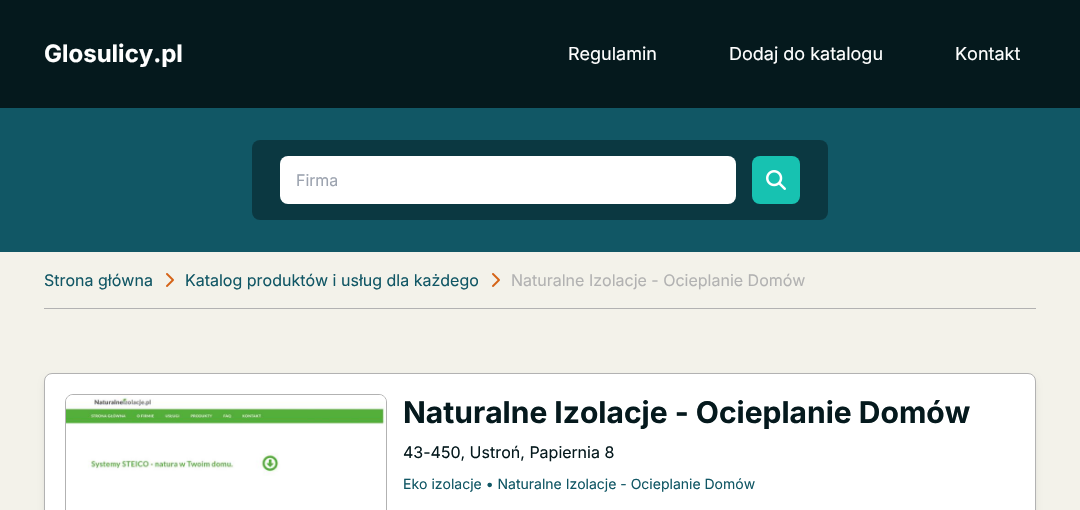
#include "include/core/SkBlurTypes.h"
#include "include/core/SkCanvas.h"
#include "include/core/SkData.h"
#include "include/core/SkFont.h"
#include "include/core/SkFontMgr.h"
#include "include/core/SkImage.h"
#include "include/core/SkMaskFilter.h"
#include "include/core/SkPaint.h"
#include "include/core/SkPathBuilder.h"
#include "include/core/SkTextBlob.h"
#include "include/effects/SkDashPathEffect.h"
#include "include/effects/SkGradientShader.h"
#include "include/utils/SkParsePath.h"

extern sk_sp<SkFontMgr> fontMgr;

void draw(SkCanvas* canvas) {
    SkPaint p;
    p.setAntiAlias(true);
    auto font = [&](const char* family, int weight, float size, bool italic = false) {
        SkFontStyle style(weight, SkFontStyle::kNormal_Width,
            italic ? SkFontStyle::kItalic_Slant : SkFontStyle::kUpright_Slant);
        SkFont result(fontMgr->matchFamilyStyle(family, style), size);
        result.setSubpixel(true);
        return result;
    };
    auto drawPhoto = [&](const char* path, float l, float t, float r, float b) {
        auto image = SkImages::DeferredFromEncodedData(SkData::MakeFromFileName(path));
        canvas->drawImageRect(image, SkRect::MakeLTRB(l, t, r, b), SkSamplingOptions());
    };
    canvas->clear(0xFFF3F2EA);
    p.setColor(0xFF05191D);
    canvas->drawRect(SkRect::MakeLTRB(0, 0, 1080, 108), p);
    auto font1 = font("Inter", 700, 24);
    p.setColor(0xFFFFFFFF);
    canvas->drawString("Glosulicy.pl", 44, 62, font1, p);
    auto font2 = font("Inter", 400, 18);
    {
        const struct { const char* s; float x, y; } items[] = {
            {"Regulamin", 568, 60},
            {"Dodaj do katalogu", 729, 60},
            {"Kontakt", 955, 60},
        };
        for (auto [s, x, y] : items) {
            canvas->drawString(s, x, y, font2, p);
        }
    }
    p.setColor(0xFF115765);
    canvas->drawRect(SkRect::MakeLTRB(0, 108, 1080, 252), p);
    p.setColor(0xFF0B3841);
    canvas->drawRoundRect(SkRect::MakeLTRB(252, 140, 828, 220), 8, 8, p);
    p.setColor(0xFFFFFFFF);
    canvas->drawRoundRect(SkRect::MakeLTRB(280, 156, 736, 204), 8, 8, p);
    auto font3 = font("Inter", 400, 16);
    p.setColor(0xFF9CA3AF);
    canvas->drawString("Firma", 296, 186, font3, p);
    p.setColor(0xFF17C2B1);
    canvas->drawRoundRect(SkRect::MakeLTRB(752, 156, 800, 204), 8, 8, p);
    drawPhoto("media/1.png", 766, 170, 786, 190);
    p.setColor(0xFFB2B2B2);
    canvas->drawRect(SkRect::MakeLTRB(44, 308, 1036, 309), p);
    p.setColor(0xFF115765);
    canvas->drawString("Strona główna", 44, 286, font3, p);
    drawPhoto("media/2.png", 166, 273, 174, 287);
    canvas->drawString("Katalog produktów i usług dla każdego", 185, 286, font3, p);
    drawPhoto("media/2.png", 492, 273, 500, 287);
    p.setColor(0xFFB2B2B2);
    canvas->drawString("Naturalne Izolacje - Ocieplanie Domów", 511, 286, font3, p);
    p.setColor(0x1A000000);
    p.setMaskFilter(SkMaskFilter::MakeBlur(kNormal_SkBlurStyle, 3));
    canvas->drawRoundRect(SkRect::MakeLTRB(45, 378, 1035, 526), 7, 7, p);
    p.setMaskFilter(nullptr);
    p.setColor(0xFFFFFFFF);
    canvas->drawRoundRect(SkRect::MakeLTRB(44.5f, 373.5f, 1035.5f, 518.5f), 7.5f, 7.5f, p);
    p.setStyle(SkPaint::kStroke_Style);
    p.setStrokeWidth(1);
    p.setColor(0xFFB2B2B2);
    canvas->drawRoundRect(SkRect::MakeLTRB(44.5f, 373.5f, 1035.5f, 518.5f), 7.5f, 7.5f, p);
    canvas->drawRoundRect(SkRect::MakeLTRB(65.5f, 394.5f, 386.5f, 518.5f), 7.5f, 7.5f, p);
    drawPhoto("media/3.png", 66, 395, 386, 476);
    auto font4 = font("Inter", 700, 30);
    p.setStyle(SkPaint::kFill_Style);
    p.setColor(0xFF05191D);
    canvas->drawString("Naturalne Izolacje - Ocieplanie Domów", 403, 423, font4, p);
    canvas->drawString("43-450, Ustroń, Papiernia 8", 403, 458, font3, p);
    auto font5 = font("Inter", 400, 14);
    p.setColor(0xFF115765);
    canvas->drawString("Eko izolacje • Naturalne Izolacje - Ocieplanie Domów", 403, 489, font5, p);
}
